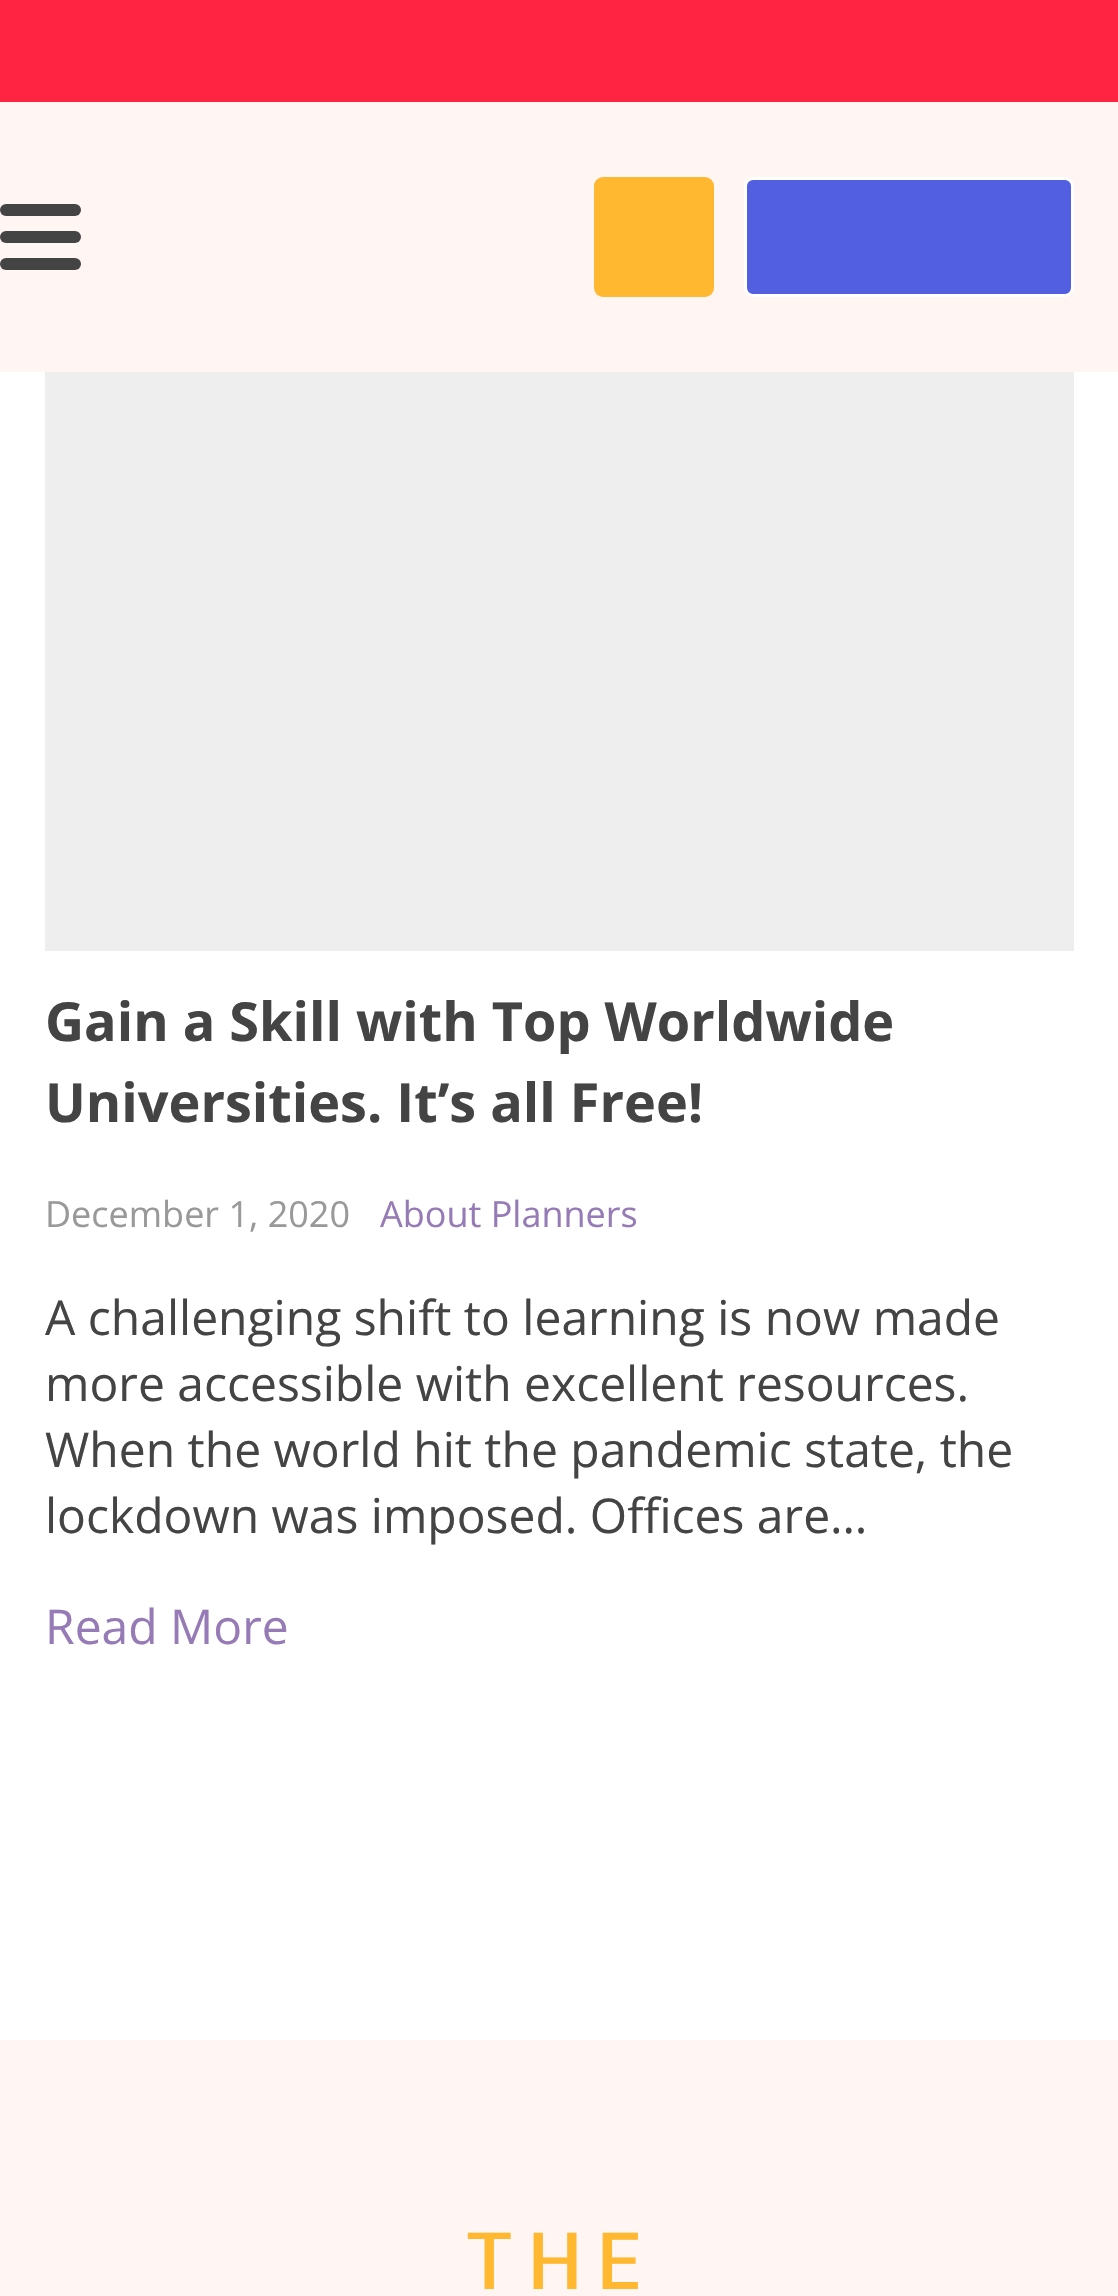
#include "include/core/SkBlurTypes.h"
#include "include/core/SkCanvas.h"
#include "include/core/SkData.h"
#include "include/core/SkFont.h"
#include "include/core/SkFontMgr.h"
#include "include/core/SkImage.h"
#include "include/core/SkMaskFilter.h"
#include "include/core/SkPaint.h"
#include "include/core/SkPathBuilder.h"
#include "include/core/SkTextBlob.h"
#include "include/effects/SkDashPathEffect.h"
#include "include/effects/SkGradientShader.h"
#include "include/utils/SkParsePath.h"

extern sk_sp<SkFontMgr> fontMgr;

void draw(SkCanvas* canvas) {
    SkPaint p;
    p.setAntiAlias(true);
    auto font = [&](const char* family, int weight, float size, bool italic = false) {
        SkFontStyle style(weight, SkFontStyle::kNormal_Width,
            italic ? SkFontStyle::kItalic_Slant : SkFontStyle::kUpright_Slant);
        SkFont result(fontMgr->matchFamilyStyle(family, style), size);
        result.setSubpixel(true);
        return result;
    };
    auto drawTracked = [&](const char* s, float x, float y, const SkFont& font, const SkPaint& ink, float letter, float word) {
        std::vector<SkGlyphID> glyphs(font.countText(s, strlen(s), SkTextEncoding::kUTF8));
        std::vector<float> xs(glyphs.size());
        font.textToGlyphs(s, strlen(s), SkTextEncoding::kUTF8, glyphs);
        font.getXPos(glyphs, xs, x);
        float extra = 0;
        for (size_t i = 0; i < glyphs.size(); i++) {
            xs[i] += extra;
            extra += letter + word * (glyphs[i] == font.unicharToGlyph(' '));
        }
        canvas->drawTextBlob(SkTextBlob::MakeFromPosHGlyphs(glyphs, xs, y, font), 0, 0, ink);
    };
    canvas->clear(0xFFFFFFFF);
    p.setColor(0xFFFF2442);
    canvas->drawRect(SkRect::MakeLTRB(0, 0, 1118, 102), p);
    p.setColor(0xFFFFF6F4);
    canvas->drawRect(SkRect::MakeLTRB(0, 102, 1118, 372), p);
    p.setColor(0xFF444444);
    canvas->drawRoundRect(SkRect::MakeLTRB(0, 204, 81, 216), 6, 6, p);
    canvas->drawRoundRect(SkRect::MakeLTRB(0, 231, 81, 243), 6, 6, p);
    canvas->drawRoundRect(SkRect::MakeLTRB(0, 258, 81, 270), 6, 6, p);
    p.setColor(0xFFFFB830);
    canvas->drawRoundRect(SkRect::MakeLTRB(594, 177, 714, 297), 9, 9, p);
    p.setColor(0xFF525FE1);
    canvas->drawRoundRect(SkRect::MakeLTRB(745.5f, 178.5f, 1072.5f, 295.5f), 7.5f, 7.5f, p);
    p.setStyle(SkPaint::kStroke_Style);
    p.setStrokeWidth(3);
    p.setColor(0xFFFFFFFF);
    canvas->drawRoundRect(SkRect::MakeLTRB(745.5f, 178.5f, 1072.5f, 295.5f), 7.5f, 7.5f, p);
    p.setStyle(SkPaint::kFill_Style);
    p.setColor(0xFFEEEEEE);
    canvas->drawRect(SkRect::MakeLTRB(45, 372, 1074, 951), p);
    auto font1 = font("Open Sans", 700, 54);
    p.setColor(0xFF444444);
    canvas->drawString("Gain a Skill with Top Worldwide", 45, 1041, font1, p);
    canvas->drawString("Universities. It’s all Free!", 45, 1122, font1, p);
    auto font2 = font("Open Sans", 400, 36);
    p.setColor(0xFF999999);
    canvas->drawString("December 1, 2020", 45, 1227, font2, p);
    p.setColor(0xFF967BB6);
    canvas->drawString("About Planners", 380, 1227, font2, p);
    auto font3 = font("Open Sans", 400, 48);
    p.setColor(0xFF444444);
    {
        const struct { const char* s; float x, y; } items[] = {
            {"A challenging shift to learning is now made", 45, 1335},
            {"more accessible with excellent resources.", 45, 1401},
            {"When the world hit the pandemic state, the", 45, 1467},
            {"lockdown was imposed. Offices are…", 45, 1533},
        };
        for (auto [s, x, y] : items) {
            canvas->drawString(s, x, y, font3, p);
        }
    }
    p.setColor(0xFF967BB6);
    canvas->drawString("Read More", 45, 1644, font3, p);
    p.setColor(0xFFFFF6F4);
    canvas->drawRect(SkRect::MakeLTRB(0, 2040, 1118, 2296), p);
    auto font4 = font("Allerta", 400, 78);
    p.setColor(0xFFFFB830);
    drawTracked("THE", 464, 2289, font4, p, 12, 0);
}
